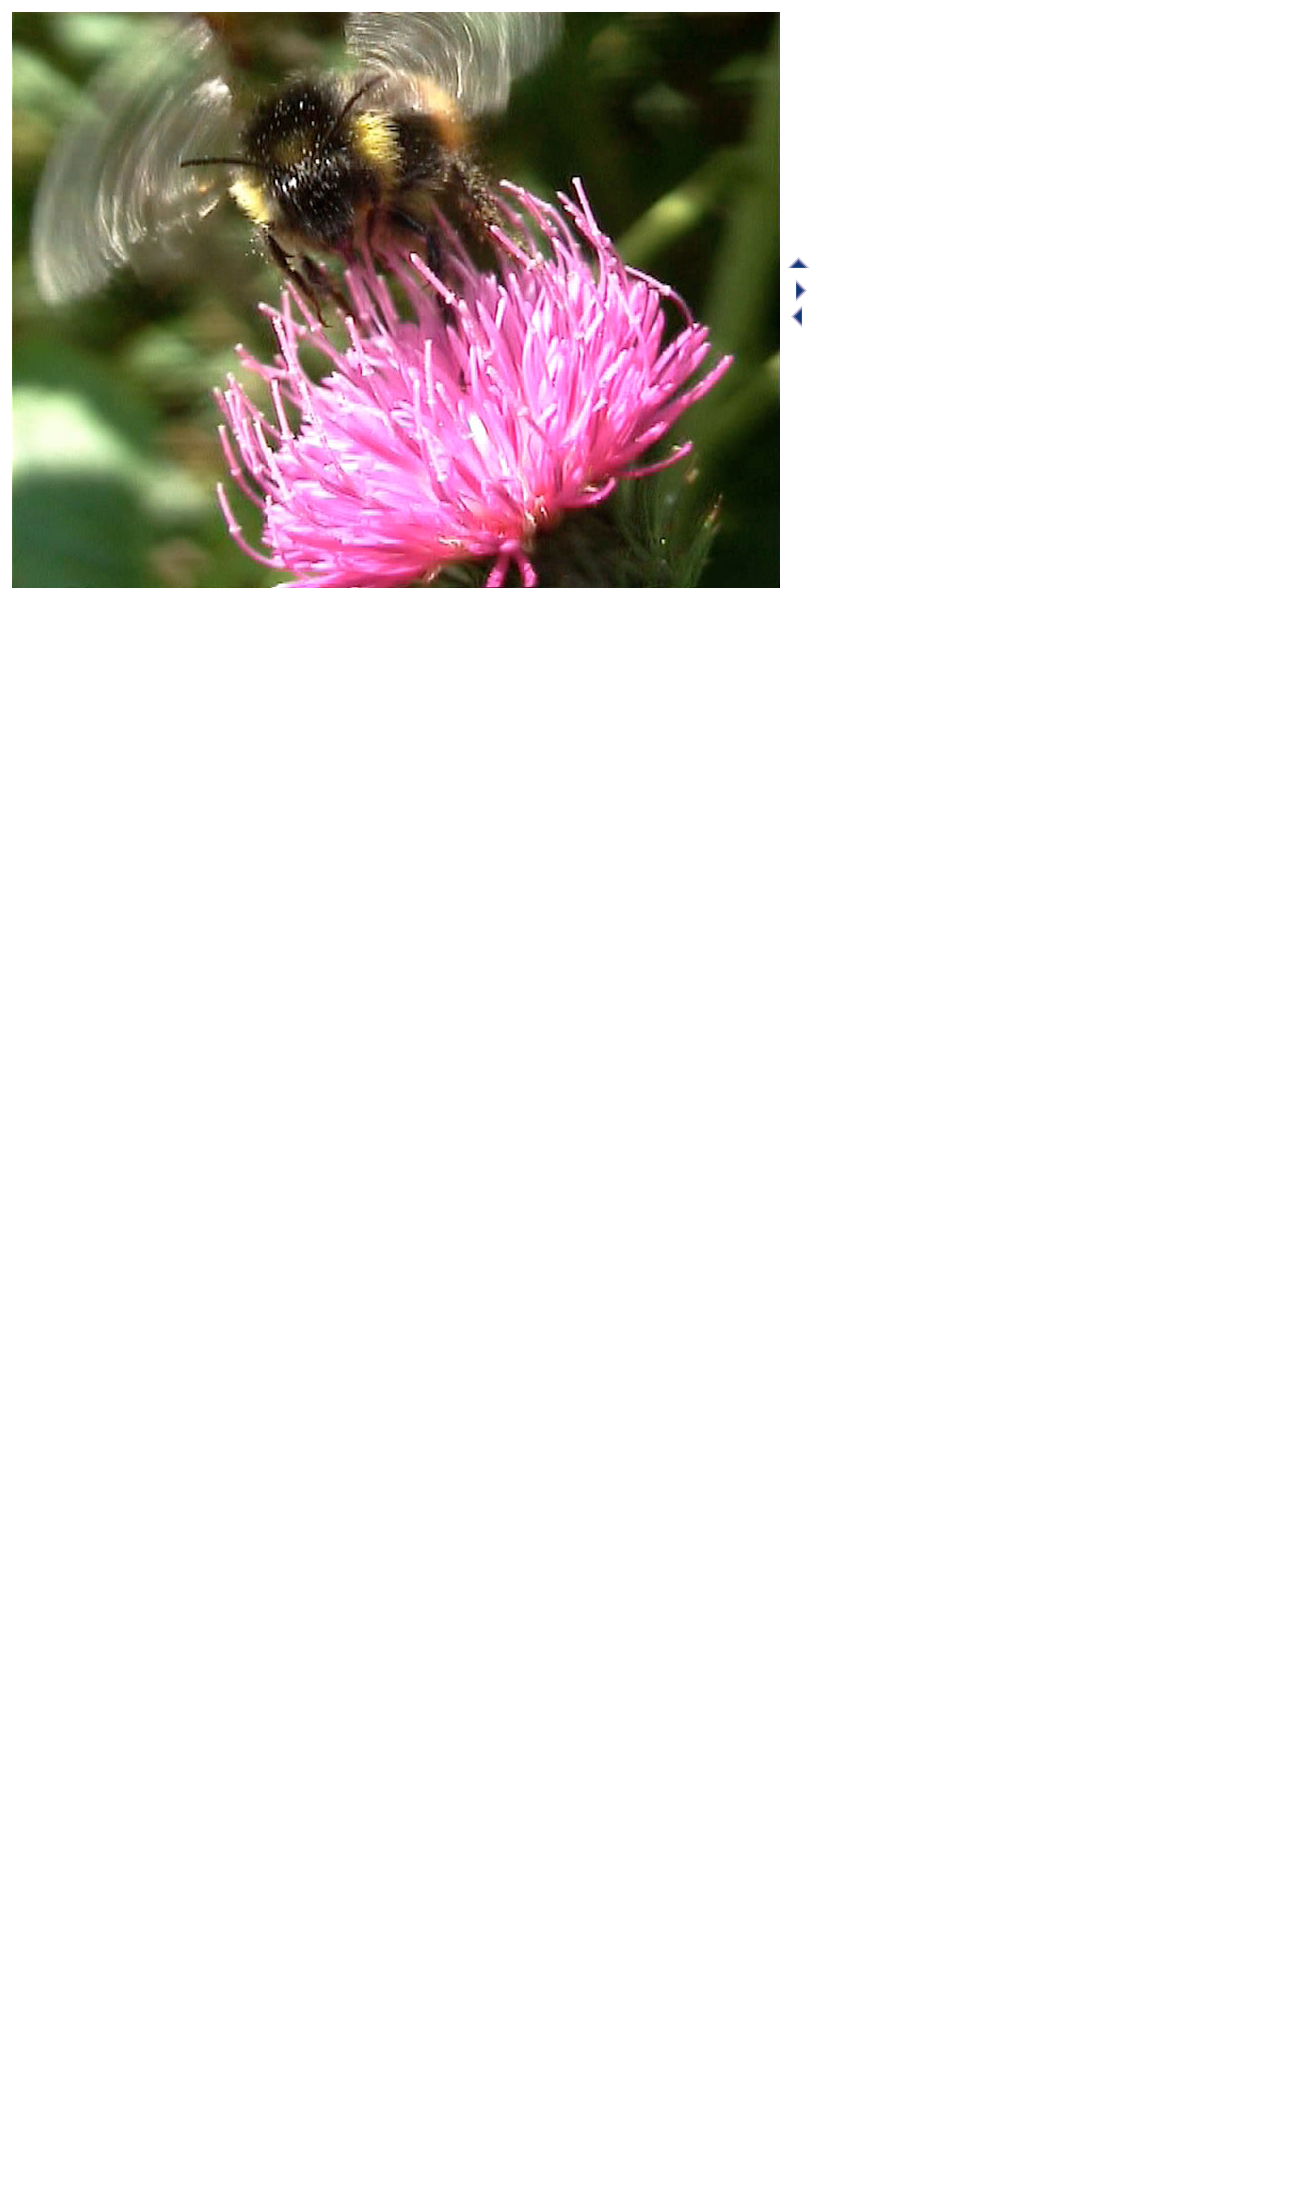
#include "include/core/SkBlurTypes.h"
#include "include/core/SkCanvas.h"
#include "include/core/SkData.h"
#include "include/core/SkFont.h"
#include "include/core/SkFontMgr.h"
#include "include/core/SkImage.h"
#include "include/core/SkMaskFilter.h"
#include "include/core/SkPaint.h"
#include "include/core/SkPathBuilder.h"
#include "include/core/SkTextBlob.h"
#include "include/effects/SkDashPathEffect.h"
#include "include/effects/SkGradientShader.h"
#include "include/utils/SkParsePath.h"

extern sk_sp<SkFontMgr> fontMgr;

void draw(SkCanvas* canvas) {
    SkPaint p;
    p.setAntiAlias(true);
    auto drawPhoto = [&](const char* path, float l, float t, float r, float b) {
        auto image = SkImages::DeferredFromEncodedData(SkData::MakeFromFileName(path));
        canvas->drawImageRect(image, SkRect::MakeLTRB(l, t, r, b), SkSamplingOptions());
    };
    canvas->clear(0xFFFFFFFF);
    drawPhoto("media/1.png", 12, 12, 780, 588);
    drawPhoto("media/2.png", 787, 257, 810, 269);
    drawPhoto("media/3.png", 795, 279, 807, 302);
    drawPhoto("media/4.png", 791, 305, 803, 328);
}
